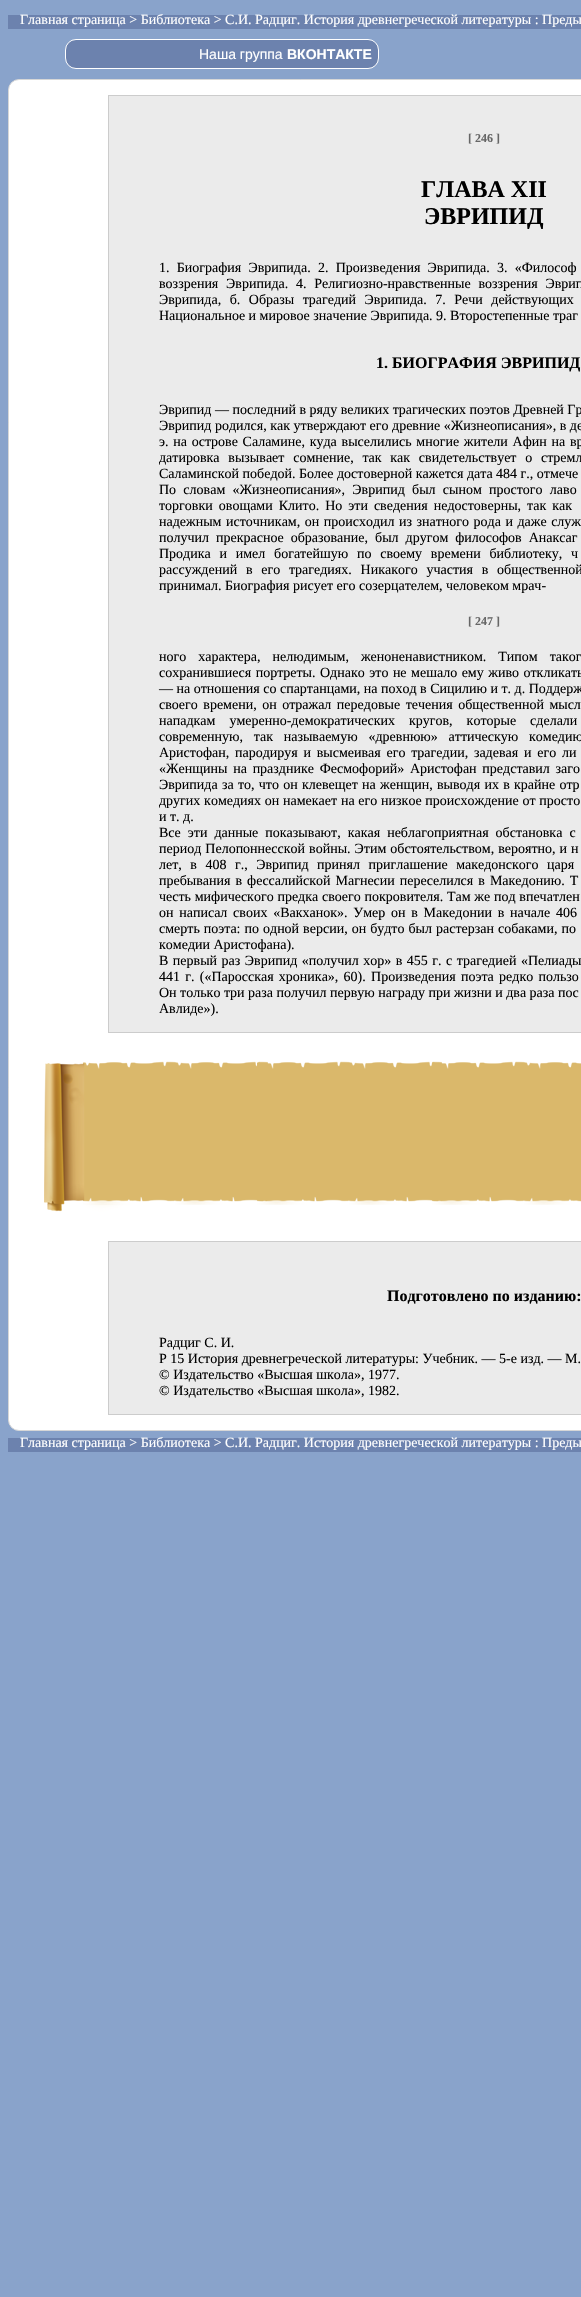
#include "include/core/SkBlurTypes.h"
#include "include/core/SkCanvas.h"
#include "include/core/SkData.h"
#include "include/core/SkFont.h"
#include "include/core/SkFontMgr.h"
#include "include/core/SkImage.h"
#include "include/core/SkMaskFilter.h"
#include "include/core/SkPaint.h"
#include "include/core/SkPathBuilder.h"
#include "include/core/SkTextBlob.h"
#include "include/effects/SkDashPathEffect.h"
#include "include/effects/SkGradientShader.h"
#include "include/utils/SkParsePath.h"

extern sk_sp<SkFontMgr> fontMgr;

void draw(SkCanvas* canvas) {
    SkPaint p;
    p.setAntiAlias(true);
    auto font = [&](const char* family, int weight, float size, bool italic = false) {
        SkFontStyle style(weight, SkFontStyle::kNormal_Width,
            italic ? SkFontStyle::kItalic_Slant : SkFontStyle::kUpright_Slant);
        SkFont result(fontMgr->matchFamilyStyle(family, style), size);
        result.setSubpixel(true);
        return result;
    };
    auto drawTracked = [&](const char* s, float x, float y, const SkFont& font, const SkPaint& ink, float letter, float word) {
        std::vector<SkGlyphID> glyphs(font.countText(s, strlen(s), SkTextEncoding::kUTF8));
        std::vector<float> xs(glyphs.size());
        font.textToGlyphs(s, strlen(s), SkTextEncoding::kUTF8, glyphs);
        font.getXPos(glyphs, xs, x);
        float extra = 0;
        for (size_t i = 0; i < glyphs.size(); i++) {
            xs[i] += extra;
            extra += letter + word * (glyphs[i] == font.unicharToGlyph(' '));
        }
        canvas->drawTextBlob(SkTextBlob::MakeFromPosHGlyphs(glyphs, xs, y, font), 0, 0, ink);
    };
    auto drawPhoto = [&](const char* path, float l, float t, float r, float b) {
        auto image = SkImages::DeferredFromEncodedData(SkData::MakeFromFileName(path));
        canvas->drawImageRect(image, SkRect::MakeLTRB(l, t, r, b), SkSamplingOptions());
    };
    canvas->clear(0xFF89A3CB);
    p.setColor(0xFF6C82AE);
    canvas->drawRect(SkRect::MakeLTRB(8, 15, 581, 29), p);
    auto font1 = font("Liberation Serif", 400, 14);
    p.setColor(0xFFFFFFFF);
    canvas->drawString("Главная страница > Библиотека > С.И. Радциг. История древнегреческой литературы : Преды", 20, 24, font1, p);
    p.setColor(0xFF6C82AE);
    canvas->drawRoundRect(SkRect::MakeLTRB(65.5f, 39.5f, 378.5f, 68.5f), 10.5f, 10.5f, p);
    p.setStyle(SkPaint::kStroke_Style);
    p.setStrokeWidth(1);
    p.setColor(0xFFFFFFFF);
    canvas->drawRoundRect(SkRect::MakeLTRB(65.5f, 39.5f, 378.5f, 68.5f), 10.5f, 10.5f, p);
    auto font2 = font("Liberation Sans", 400, 14);
    p.setStyle(SkPaint::kFill_Style);
    canvas->drawString("Наша группа", 199, 59, font2, p);
    auto font3 = font("Liberation Sans", 700, 14);
    canvas->drawString("ВКОНТАКТЕ", 287, 59, font3, p);
    canvas->drawRoundRect(SkRect::MakeLTRB(8.5f, 79.5f, 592.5f, 1430.5f), 10.5f, 10.5f, p);
    p.setStyle(SkPaint::kStroke_Style);
    p.setColor(0xFFD7D7D7);
    canvas->drawRoundRect(SkRect::MakeLTRB(8.5f, 79.5f, 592.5f, 1430.5f), 10.5f, 10.5f, p);
    p.setStyle(SkPaint::kFill_Style);
    p.setColor(0xFFEBEBEB);
    canvas->drawRect(SkRect::MakeLTRB(108.5f, 95.5f, 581.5f, 1032.5f), p);
    p.setStyle(SkPaint::kStroke_Style);
    p.setColor(0xFFCCCCCC);
    canvas->drawRect(SkRect::MakeLTRB(108.5f, 95.5f, 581.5f, 1032.5f), p);
    auto font4 = font("Liberation Serif", 700, 12);
    p.setStyle(SkPaint::kFill_Style);
    p.setColor(0xFF666666);
    canvas->drawString("[ 246 ]", 468, 142, font4, p);
    auto font5 = font("Liberation Serif", 700, 24);
    p.setColor(0xFF000000);
    canvas->drawString("ГЛАВА XII", 421, 197, font5, p);
    canvas->drawString("ЭВРИПИД", 424, 224, font5, p);
    drawTracked("1. Биография Эврипида. 2. Произведения Эврипида. 3. «Философ", 159, 272, font1, p, 0, 3.75f);
    drawTracked("воззрения Эврипида. 4. Религиозно-нравственные воззрения Эврип", 159, 288, font1, p, 0, 4.25f);
    drawTracked("Эврипида, б. Образы трагедий Эврипида. 7. Речи действующих", 159, 304, font1, p, 0, 5);
    canvas->drawString("Национальное и мировое значение Эврипида. 9. Второстепенные траг", 159, 320, font1, p);
    auto font6 = font("Liberation Serif", 700, 16);
    canvas->drawString("1. БИОГРАФИЯ ЭВРИПИД", 376, 368, font6, p);
    canvas->drawString("Эврипид — последний в ряду великих трагических поэтов Древней Гр", 159, 414, font1, p);
    canvas->drawString("Эврипид родился, как утверждают его древние «Жизнеописания», в де", 159, 430, font1, p);
    drawTracked("э. на острове Саламине, куда выселились многие жители Афин на вр", 159, 446, font1, p, 0, 1.25f);
    drawTracked("датировка вызывает сомнение, так как свидетельствует о стремл", 159, 462, font1, p, 0, 5.25f);
    canvas->drawString("Саламинской победой. Более достоверной кажется дата 484 г., отмече", 159, 478, font1, p);
    drawTracked("По словам «Жизнеописания», Эврипид был сыном простого лаво", 159, 494, font1, p, 0, 3.75f);
    drawTracked("торговки овощами Клито. Но эти сведения недостоверны, так как", 159, 510, font1, p, 0, 2.5f);
    drawTracked("надежным источникам, он происходил из знатного рода и даже служ", 159, 526, font1, p, 0, 1);
    drawTracked("получил прекрасное образование, был другом философов Анаксаг", 159, 542, font1, p, 0, 3.5f);
    drawTracked("Продика и имел богатейшую по своему времени библиотеку, ч", 159, 558, font1, p, 0, 5.25f);
    drawTracked("рассуждений в его трагедиях. Никакого участия в общественной", 159, 574, font1, p, 0, 5.25f);
    canvas->drawString("принимал. Биография рисует его созерцателем, человеком мрач-", 159, 590, font1, p);
    p.setColor(0xFF666666);
    canvas->drawString("[ 247 ]", 468, 625, font4, p);
    p.setColor(0xFF000000);
    drawTracked("ного характера, нелюдимым, женоненавистником. Типом таког", 159, 661, font1, p, 0, 8.5f);
    drawTracked("сохранившиеся портреты. Однако это не мешало ему живо откликать", 159, 677, font1, p, 0, 1);
    canvas->drawString("— на отношения со спартанцами, на поход в Сицилию и т. д. Поддерж", 159, 693, font1, p);
    drawTracked("своего времени, он отражал передовые течения общественной мысл", 159, 709, font1, p, 0, 2);
    drawTracked("нападкам умеренно-демократических кругов, которые сделали", 159, 725, font1, p, 0, 10.5f);
    drawTracked("современную, так называемую «древнюю» аттическую комедию", 159, 741, font1, p, 0, 7.25f);
    drawTracked("Аристофан, пародируя и высмеивая его трагедии, задевая и его ли", 159, 757, font1, p, 0, 2.25f);
    drawTracked("«Женщины на празднике Фесмофорий» Аристофан представил заго", 159, 773, font1, p, 0, 2.25f);
    drawTracked("Эврипида за то, что он клевещет на женщин, выводя их в крайне отр", 159, 789, font1, p, 0, 0.75f);
    drawTracked("других комедиях он намекает на его низкое происхождение от просто", 159, 805, font1, p, 0, 0.25f);
    canvas->drawString("и т. д.", 159, 821, font1, p);
    drawTracked("Все эти данные показывают, какая неблагоприятная обстановка с", 159, 837, font1, p, 0, 3.5f);
    drawTracked("период Пелопоннесской войны. Этим обстоятельством, вероятно, и н", 159, 853, font1, p, 0, 0.5f);
    drawTracked("лет, в 408 г., Эврипид принял приглашение македонского царя", 159, 869, font1, p, 0, 5);
    drawTracked("пребывания в фессалийской Магнесии переселился в Македонию. Т", 159, 885, font1, p, 0, 1.5f);
    drawTracked("честь мифического предка своего покровителя. Там же под впечатлен", 159, 901, font1, p, 0, 0.25f);
    drawTracked("он написал своих «Вакханок». Умер он в Македонии в начале 406", 159, 917, font1, p, 0, 2.25f);
    drawTracked("смерть поэта: по одной версии, он будто был растерзан собаками, по", 159, 933, font1, p, 0, 0.5f);
    canvas->drawString("комедии Аристофана).", 159, 949, font1, p);
    drawTracked("В первый раз Эврипид «получил хор» в 455 г. с трагедией «Пелиады", 159, 965, font1, p, 0, 1);
    drawTracked("441 г. («Паросская хроника», 60). Произведения поэта редко пользо", 159, 981, font1, p, 0, 1.75f);
    canvas->drawString("Он только три раза получил первую награду при жизни и два раза пос", 159, 997, font1, p);
    canvas->drawString("Авлиде»).", 159, 1013, font1, p);
    drawPhoto("media/1.png", 44, 1061, 581, 1212);
    p.setColor(0xFFEBEBEB);
    canvas->drawRect(SkRect::MakeLTRB(108.5f, 1241.5f, 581.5f, 1414.5f), p);
    p.setStyle(SkPaint::kStroke_Style);
    p.setColor(0xFFCCCCCC);
    canvas->drawRect(SkRect::MakeLTRB(108.5f, 1241.5f, 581.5f, 1414.5f), p);
    p.setStyle(SkPaint::kFill_Style);
    p.setColor(0xFF000000);
    canvas->drawString("Подготовлено по изданию:", 387, 1301, font6, p);
    {
        const struct { const char* s; float x, y; } items[] = {
            {"Радциг С. И.", 159, 1347},
            {"Р 15 История древнегреческой литературы: Учебник. — 5-е изд. — М.", 159, 1363},
            {"© Издательство «Высшая школа», 1977.", 159, 1379},
            {"© Издательство «Высшая школа», 1982.", 159, 1395},
        };
        for (auto [s, x, y] : items) {
            canvas->drawString(s, x, y, font1, p);
        }
    }
    p.setColor(0xFF6C82AE);
    canvas->drawRect(SkRect::MakeLTRB(8, 1438, 581, 1452), p);
    p.setColor(0xFFFFFFFF);
    canvas->drawString("Главная страница > Библиотека > С.И. Радциг. История древнегреческой литературы : Преды", 20, 1447, font1, p);
}
